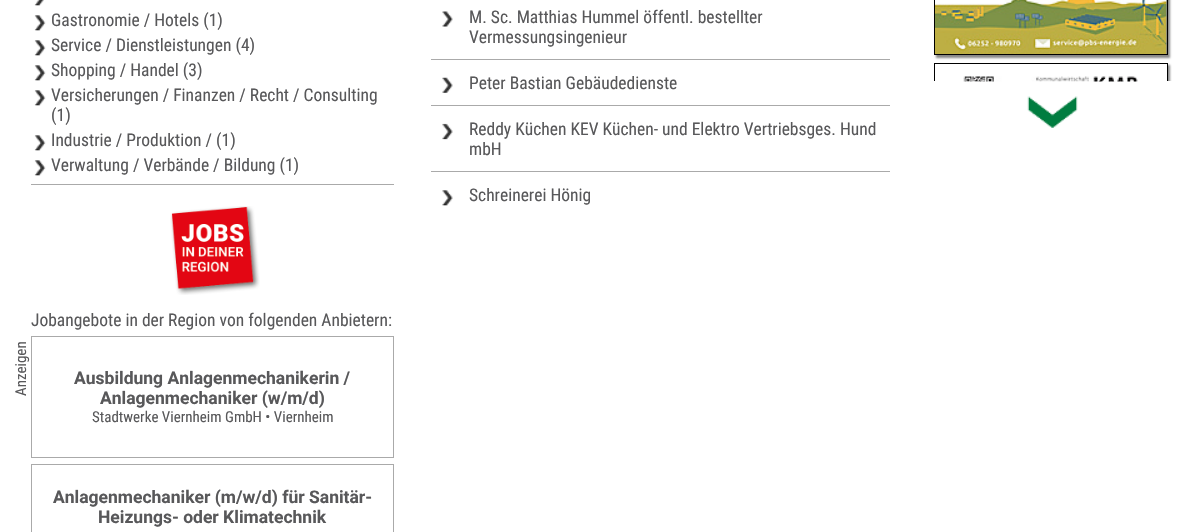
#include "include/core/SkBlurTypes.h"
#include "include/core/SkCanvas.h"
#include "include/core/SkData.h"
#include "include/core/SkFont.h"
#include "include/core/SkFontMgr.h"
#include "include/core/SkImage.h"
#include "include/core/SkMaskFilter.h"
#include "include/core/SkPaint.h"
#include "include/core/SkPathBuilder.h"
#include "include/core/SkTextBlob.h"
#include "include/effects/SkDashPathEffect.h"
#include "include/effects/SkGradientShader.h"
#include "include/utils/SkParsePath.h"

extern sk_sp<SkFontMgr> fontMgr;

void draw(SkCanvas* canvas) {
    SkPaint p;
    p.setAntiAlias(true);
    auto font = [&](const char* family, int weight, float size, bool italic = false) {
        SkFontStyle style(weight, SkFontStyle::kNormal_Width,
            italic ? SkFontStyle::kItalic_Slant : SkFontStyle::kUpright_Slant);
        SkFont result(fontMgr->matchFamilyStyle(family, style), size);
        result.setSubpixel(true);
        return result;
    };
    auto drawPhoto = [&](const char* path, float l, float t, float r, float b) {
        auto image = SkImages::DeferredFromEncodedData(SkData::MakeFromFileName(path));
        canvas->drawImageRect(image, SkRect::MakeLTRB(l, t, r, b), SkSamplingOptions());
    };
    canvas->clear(0xFFFFFFFF);
    drawPhoto("media/1.png", 34, 0, 44, 6);
    drawPhoto("media/2.png", 34, 15, 46, 31);
    auto font1 = font("Roboto Condensed", 400, 17.5f);
    p.setColor(0xFF58585A);
    canvas->drawString("Gastronomie / Hotels (1)", 51, 26, font1, p);
    drawPhoto("media/2.png", 34, 40, 46, 56);
    canvas->drawString("Service / Dienstleistungen (4)", 51, 51, font1, p);
    drawPhoto("media/2.png", 34, 65, 46, 81);
    canvas->drawString("Shopping / Handel (3)", 51, 76, font1, p);
    drawPhoto("media/2.png", 34, 90, 46, 106);
    canvas->drawString("Versicherungen / Finanzen / Recht / Consulting", 51, 101, font1, p);
    canvas->drawString("(1)", 51, 121, font1, p);
    drawPhoto("media/2.png", 34, 135, 46, 151);
    canvas->drawString("Industrie / Produktion / (1)", 51, 146, font1, p);
    drawPhoto("media/2.png", 34, 160, 46, 176);
    canvas->drawString("Verwaltung / Verbände / Bildung (1)", 51, 171, font1, p);
    canvas->drawString("Jobangebote in der Region von folgenden Anbietern:", 31, 326, font1, p);
    drawPhoto("media/3.png", 170, 206, 260, 295);
    p.setColor(0xFFAAAAAA);
    canvas->drawRect(SkRect::MakeLTRB(31, 184, 394, 185), p);
    auto font2 = font("Roboto Condensed", 400, 15);
    p.setColor(0xFF58585A);
    canvas->save();
    canvas->rotate(-90, 26, 396);
    canvas->drawString("Anzeigen", 26, 396, font2, p);
    canvas->restore();
    p.setStyle(SkPaint::kStroke_Style);
    p.setStrokeWidth(1);
    p.setColor(0xFFAAAAAA);
    canvas->drawRect(SkRect::MakeLTRB(31.5f, 336.5f, 393.5f, 457.5f), p);
    auto font3 = font("Roboto", 700, 17.5f);
    p.setStyle(SkPaint::kFill_Style);
    p.setColor(0xFF58585A);
    canvas->drawString("Ausbildung Anlagenmechanikerin /", 74, 384, font3, p);
    canvas->drawString("Anlagenmechaniker (w/m/d)", 100, 404, font3, p);
    canvas->drawString("Stadtwerke Viernheim GmbH • Viernheim", 92, 422, font2, p);
    p.setStyle(SkPaint::kStroke_Style);
    p.setColor(0xFFAAAAAA);
    canvas->drawRect(SkRect::MakeLTRB(31.5f, 464.5f, 393.5f, 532.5f), p);
    p.setStyle(SkPaint::kFill_Style);
    p.setColor(0xFF58585A);
    canvas->drawString("Anlagenmechaniker (m/w/d) für Sanitär-", 53, 503, font3, p);
    canvas->drawString("Heizungs- oder Klimatechnik", 98, 523, font3, p);
    drawPhoto("media/4.png", 442, 11, 453, 27);
    canvas->drawString("M. Sc. Matthias Hummel öffentl. bestellter", 469, 23, font1, p);
    canvas->drawString("Vermessungsingenieur", 469, 43, font1, p);
    drawPhoto("media/5.png", 442, 77, 453, 93);
    p.setColor(0xFFAAAAAA);
    canvas->drawRect(SkRect::MakeLTRB(431, 59, 890, 60), p);
    p.setColor(0xFF58585A);
    canvas->drawString("Peter Bastian Gebäudedienste", 469, 89, font1, p);
    drawPhoto("media/6.png", 442, 123, 453, 140);
    p.setColor(0xFFAAAAAA);
    canvas->drawRect(SkRect::MakeLTRB(431, 105, 890, 106), p);
    p.setColor(0xFF58585A);
    canvas->drawString("Reddy Küchen KEV Küchen- und Elektro Vertriebsges. Hund", 469, 135, font1, p);
    canvas->drawString("mbH", 469, 155, font1, p);
    drawPhoto("media/7.png", 442, 190, 453, 206);
    p.setColor(0xFFAAAAAA);
    canvas->drawRect(SkRect::MakeLTRB(431, 171, 890, 172), p);
    p.setColor(0xFF58585A);
    canvas->drawString("Schreinerei Hönig", 469, 201, font1, p);
    p.setColor(0xFF888888);
    p.setMaskFilter(SkMaskFilter::MakeBlur(kNormal_SkBlurStyle, 1));
    canvas->drawRect(SkRect::MakeLTRB(936, -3, 1170, 58), p);
    p.setMaskFilter(nullptr);
    p.setStyle(SkPaint::kStroke_Style);
    p.setColor(0xFF000000);
    canvas->drawRect(SkRect::MakeLTRB(934.5f, -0.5f, 1167.5f, 54.5f), p);
    drawPhoto("media/8.png", 935, 0, 1167, 54);
    drawPhoto("media/10.png", 1027, 96, 1078, 128);
    canvas->save();
    canvas->clipRect(SkRect::MakeLTRB(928, 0, 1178, 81));
    canvas->clipRect(SkRect::MakeLTRB(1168, 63, 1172, 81));
    p.setStyle(SkPaint::kFill_Style);
    p.setColor(0xFF888888);
    p.setMaskFilter(SkMaskFilter::MakeBlur(kNormal_SkBlurStyle, 1));
    canvas->drawRect(SkRect::MakeLTRB(936, 65, 1170, 299), p);
    p.setMaskFilter(nullptr);
    canvas->restore();
    canvas->save();
    canvas->clipRect(SkRect::MakeLTRB(928, 0, 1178, 81));
    p.setStyle(SkPaint::kStroke_Style);
    p.setColor(0xFF000000);
    canvas->drawRect(SkRect::MakeLTRB(934.5f, 63.5f, 1167.5f, 295.5f), p);
    canvas->restore();
    drawPhoto("media/9.png", 963, 76, 1138, 82);
}
